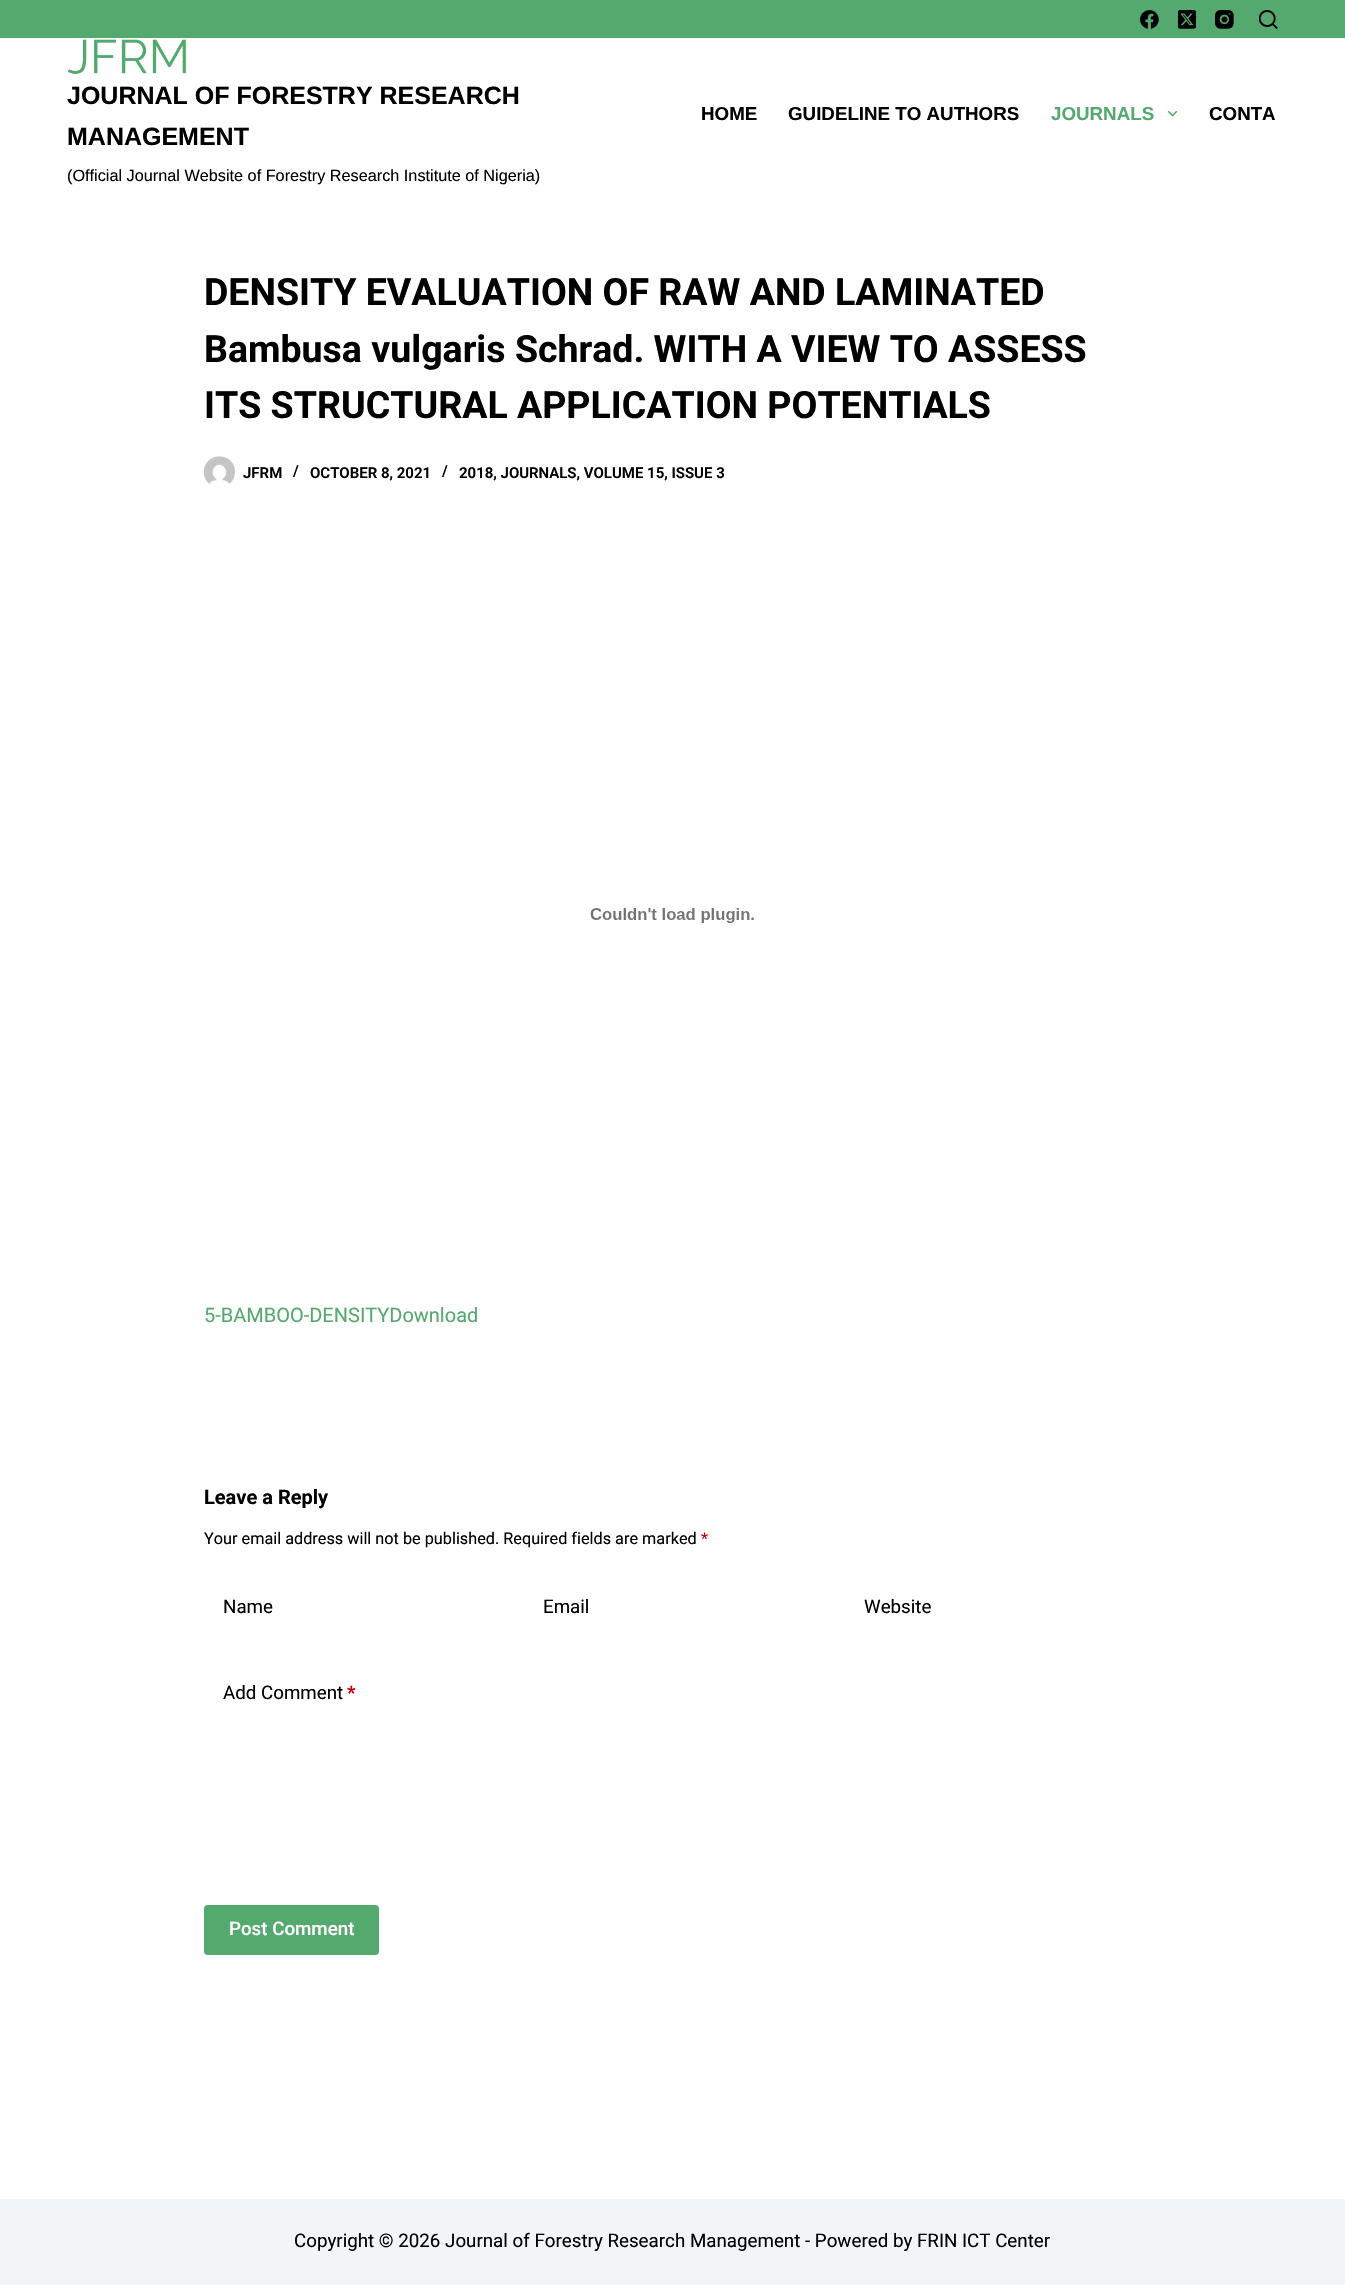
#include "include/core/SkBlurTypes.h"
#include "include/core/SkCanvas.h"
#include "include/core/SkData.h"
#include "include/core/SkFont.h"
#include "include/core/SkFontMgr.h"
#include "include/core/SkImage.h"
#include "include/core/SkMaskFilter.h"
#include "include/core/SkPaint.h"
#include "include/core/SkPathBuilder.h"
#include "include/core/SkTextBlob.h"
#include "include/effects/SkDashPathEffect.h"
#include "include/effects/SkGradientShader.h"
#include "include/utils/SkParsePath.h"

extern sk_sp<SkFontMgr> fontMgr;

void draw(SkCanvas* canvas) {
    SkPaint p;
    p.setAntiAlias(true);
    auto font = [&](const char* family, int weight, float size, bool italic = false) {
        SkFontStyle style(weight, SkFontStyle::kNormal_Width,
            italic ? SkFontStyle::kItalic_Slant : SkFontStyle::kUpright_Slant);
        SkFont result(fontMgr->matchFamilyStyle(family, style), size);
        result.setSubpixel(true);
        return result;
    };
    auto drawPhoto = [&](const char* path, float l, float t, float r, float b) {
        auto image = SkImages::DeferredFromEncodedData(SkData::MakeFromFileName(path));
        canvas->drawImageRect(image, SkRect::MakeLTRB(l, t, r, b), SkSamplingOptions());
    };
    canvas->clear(0xFFFFFFFF);
    p.setColor(0xFF54AA6E);
    canvas->drawRect(SkRect::MakeLTRB(0, 0, 1345, 38), p);
    drawPhoto("media/1.png", 1140, 10, 1159, 29);
    drawPhoto("media/2.png", 1178, 10, 1196, 29);
    drawPhoto("media/3.png", 1215, 10, 1234, 29);
    drawPhoto("media/4.png", 1259, 10, 1278, 29);
    drawPhoto("media/5.png", 68, 39, 187, 74);
    auto font1 = font("Liberation Sans", 700, 25);
    p.setColor(0xFF000000);
    canvas->drawString("JOURNAL OF FORESTRY RESEARCH", 67, 104, font1, p);
    canvas->drawString("MANAGEMENT", 67, 145, font1, p);
    auto font2 = font("Liberation Sans", 400, 16.25f);
    canvas->drawString("(Official Journal Website of Forestry Research Institute of Nigeria)", 67, 181, font2, p);
    auto font3 = font("Liberation Sans", 700, 18.75f);
    canvas->drawString("HOME", 701, 120, font3, p);
    canvas->drawString("GUIDELINE TO AUTHORS", 788, 120, font3, p);
    p.setColor(0xFF54AA6E);
    canvas->drawString("JOURNALS", 1051, 120, font3, p);
    drawPhoto("media/6.png", 1168, 111, 1178, 117);
    p.setColor(0xFF000000);
    canvas->drawString("CONTA", 1209, 120, font3, p);
    auto font4 = font("Roboto", 700, 37.5f);
    {
        const struct { const char* s; float x, y; } items[] = {
            {"DENSITY EVALUATION OF RAW AND LAMINATED", 204, 305},
            {"Bambusa vulgaris Schrad. WITH A VIEW TO ASSESS", 204, 362},
            {"ITS STRUCTURAL APPLICATION POTENTIALS", 204, 418},
        };
        for (auto [s, x, y] : items) {
            canvas->drawString(s, x, y, font4, p);
        }
    }
    drawPhoto("media/7.png", 204, 456, 235, 484);
    auto font5 = font("Roboto", 600, 15);
    {
        const struct { const char* s; float x, y; } items[] = {
            {"JFRM", 243, 478},
            {"/", 293, 476},
            {"OCTOBER 8, 2021", 310, 478},
            {"/", 442, 476},
            {"2018, JOURNALS, VOLUME 15, ISSUE 3", 459, 478},
        };
        for (auto [s, x, y] : items) {
            canvas->drawString(s, x, y, font5, p);
        }
    }
    drawPhoto("media/8.png", 590, 908, 754, 923);
    auto font6 = font("Roboto", 400, 20);
    p.setColor(0xFF54AA6E);
    canvas->drawString("5-BAMBOO-DENSITYDownload", 204, 1322, font6, p);
    auto font7 = font("Roboto", 700, 20);
    p.setColor(0xFF000000);
    canvas->drawString("Leave a Reply", 204, 1504, font7, p);
    auto font8 = font("Roboto", 400, 16.25f);
    canvas->drawString("Your email address will not be published. Required fields are marked", 204, 1544, font8, p);
    p.setColor(0xFFCC0000);
    canvas->drawString("*", 701, 1544, font8, p);
    auto font9 = font("Roboto", 400, 18.75f);
    p.setColor(0xFF000000);
    {
        const struct { const char* s; float x, y; } items[] = {
            {"Name", 223, 1613},
            {"Email", 543, 1613},
            {"Website", 864, 1613},
            {"Add Comment", 223, 1699},
        };
        for (auto [s, x, y] : items) {
            canvas->drawString(s, x, y, font9, p);
        }
    }
    auto font10 = font("Roboto", 700, 18.75f);
    p.setColor(0xFFCC0000);
    canvas->drawString("*", 347, 1699, font10, p);
    p.setColor(0xFF54AA6E);
    canvas->drawRoundRect(SkRect::MakeLTRB(204, 1905, 379, 1955), 4, 4, p);
    auto font11 = font("Roboto", 500, 18.75f);
    p.setColor(0xFFFFFFFF);
    canvas->drawString("Post Comment", 229, 1935, font11, p);
    p.setColor(0xFFF2F5F7);
    canvas->drawRect(SkRect::MakeLTRB(0, 2199, 1345, 2285), p);
    p.setColor(0xFF000000);
    canvas->drawString("Copyright © 2026 Journal of Forestry Research Management - Powered by FRIN ICT Center", 294, 2247, font9, p);
}
